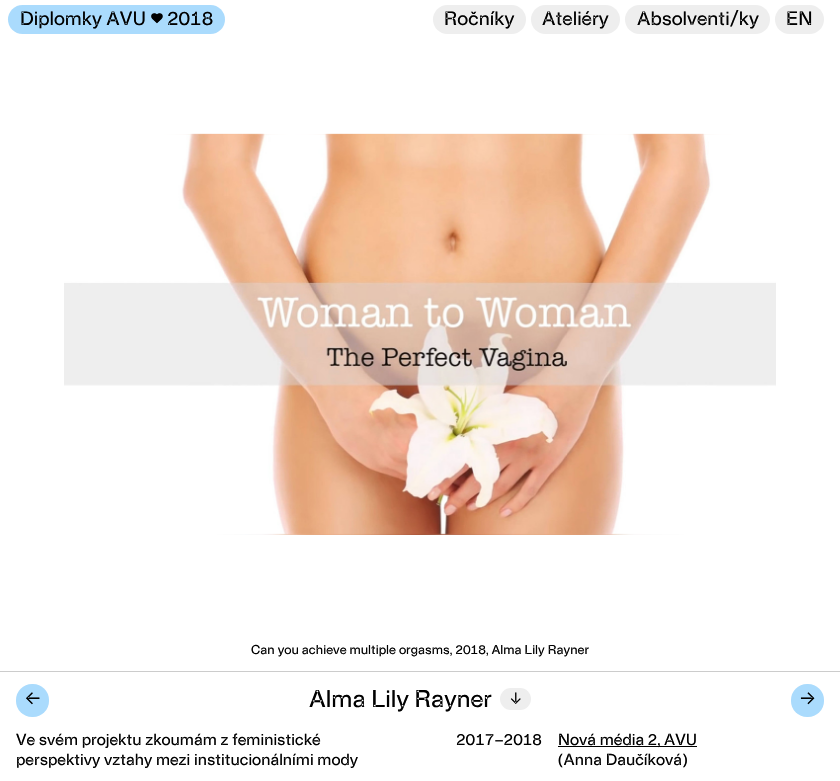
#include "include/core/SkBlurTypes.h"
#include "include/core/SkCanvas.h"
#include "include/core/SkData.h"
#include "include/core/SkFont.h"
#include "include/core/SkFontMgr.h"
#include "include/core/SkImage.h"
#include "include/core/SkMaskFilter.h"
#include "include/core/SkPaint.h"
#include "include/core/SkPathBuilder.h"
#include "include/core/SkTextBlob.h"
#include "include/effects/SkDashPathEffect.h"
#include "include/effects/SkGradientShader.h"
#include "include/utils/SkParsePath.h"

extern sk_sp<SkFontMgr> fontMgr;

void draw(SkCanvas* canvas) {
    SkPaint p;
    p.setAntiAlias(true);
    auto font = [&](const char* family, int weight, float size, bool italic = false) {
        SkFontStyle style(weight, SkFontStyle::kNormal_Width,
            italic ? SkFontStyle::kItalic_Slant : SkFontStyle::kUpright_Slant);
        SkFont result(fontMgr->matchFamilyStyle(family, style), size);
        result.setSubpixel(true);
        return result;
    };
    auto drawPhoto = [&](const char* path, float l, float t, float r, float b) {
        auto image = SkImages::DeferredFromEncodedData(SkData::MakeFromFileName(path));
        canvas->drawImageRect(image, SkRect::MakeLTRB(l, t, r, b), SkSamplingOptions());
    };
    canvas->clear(0xFFFFFFFF);
    p.setColor(0xFFAADBFD);
    canvas->drawRoundRect(SkRect::MakeLTRB(8, 5, 225, 34), 14.5f, 14.5f, p);
    auto font1 = font("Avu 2", 400, 19.25f);
    p.setColor(0xFF000000);
    canvas->drawString("Diplomky AVU ♥", 20, 25, font1, p);
    auto font2 = font("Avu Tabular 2", 400, 19.25f);
    canvas->drawString("2018", 167, 25, font2, p);
    p.setColor(0xFFEEEEEE);
    canvas->drawRoundRect(SkRect::MakeLTRB(433, 5, 526, 34), 14.5f, 14.5f, p);
    p.setColor(0xFF000000);
    canvas->drawString("Ročníky", 444, 25, font1, p);
    p.setColor(0xFFEEEEEE);
    canvas->drawRoundRect(SkRect::MakeLTRB(531, 5, 620, 34), 14.5f, 14.5f, p);
    p.setColor(0xFF000000);
    canvas->drawString("Ateliéry", 542, 25, font1, p);
    p.setColor(0xFFEEEEEE);
    canvas->drawRoundRect(SkRect::MakeLTRB(625, 5, 770, 34), 14.5f, 14.5f, p);
    p.setColor(0xFF000000);
    canvas->drawString("Absolventi/ky", 637, 25, font1, p);
    p.setColor(0xFFEEEEEE);
    canvas->drawRoundRect(SkRect::MakeLTRB(775, 5, 824, 34), 14.5f, 14.5f, p);
    p.setColor(0xFF000000);
    canvas->drawString("EN", 786, 25, font1, p);
    drawPhoto("media/1.png", 64, 134, 776, 535);
    drawPhoto("media/2.png", 64, 133, 776, 535);
    auto font3 = font("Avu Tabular", 400, 12.8f);
    canvas->drawString("Can you achieve multiple orgasms, 2018, Alma Lily Rayner", 251, 654, font3, p);
    p.setColor(0xFFCCCCCC);
    canvas->drawRect(SkRect::MakeLTRB(0, 671, 840, 672), p);
    auto font4 = font("Avu 2", 400, 24);
    p.setColor(0xFF000000);
    canvas->drawString("Alma Lily Rayner", 309, 707, font4, p);
    p.setColor(0xFFEEEEEE);
    canvas->drawRoundRect(SkRect::MakeLTRB(500, 688, 531, 710), 11, 11, p);
    auto font5 = font("Avu 2", 400, 16);
    p.setColor(0xFF000000);
    canvas->drawString("↓", 510, 704, font5, p);
    p.setColor(0xFFAADBFD);
    canvas->drawRoundRect(SkRect::MakeLTRB(16, 684, 49, 717), 16, 16, p);
    auto font6 = font("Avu", 400, 19.25f);
    p.setColor(0xFF000000);
    canvas->drawString("←", 25, 705, font6, p);
    p.setColor(0xFFAADBFD);
    canvas->drawRoundRect(SkRect::MakeLTRB(791, 684, 824, 717), 16, 16, p);
    p.setColor(0xFF000000);
    canvas->drawString("→", 800, 705, font6, p);
    auto font7 = font("Avu", 400, 16);
    canvas->drawString("Ve svém projektu zkoumám z feministické", 16, 745, font7, p);
    canvas->drawString("perspektivy vztahy mezi institucionálními mody", 16, 765, font7, p);
    auto font8 = font("Avu Tabular", 400, 16);
    canvas->drawString("2017–2018", 456, 745, font8, p);
    canvas->drawRect(SkRect::MakeLTRB(558, 746, 697, 747), p);
    canvas->drawString("Nová média 2, AVU", 558, 745, font7, p);
    canvas->drawString("(Anna Daučíková)", 558, 765, font7, p);
}
